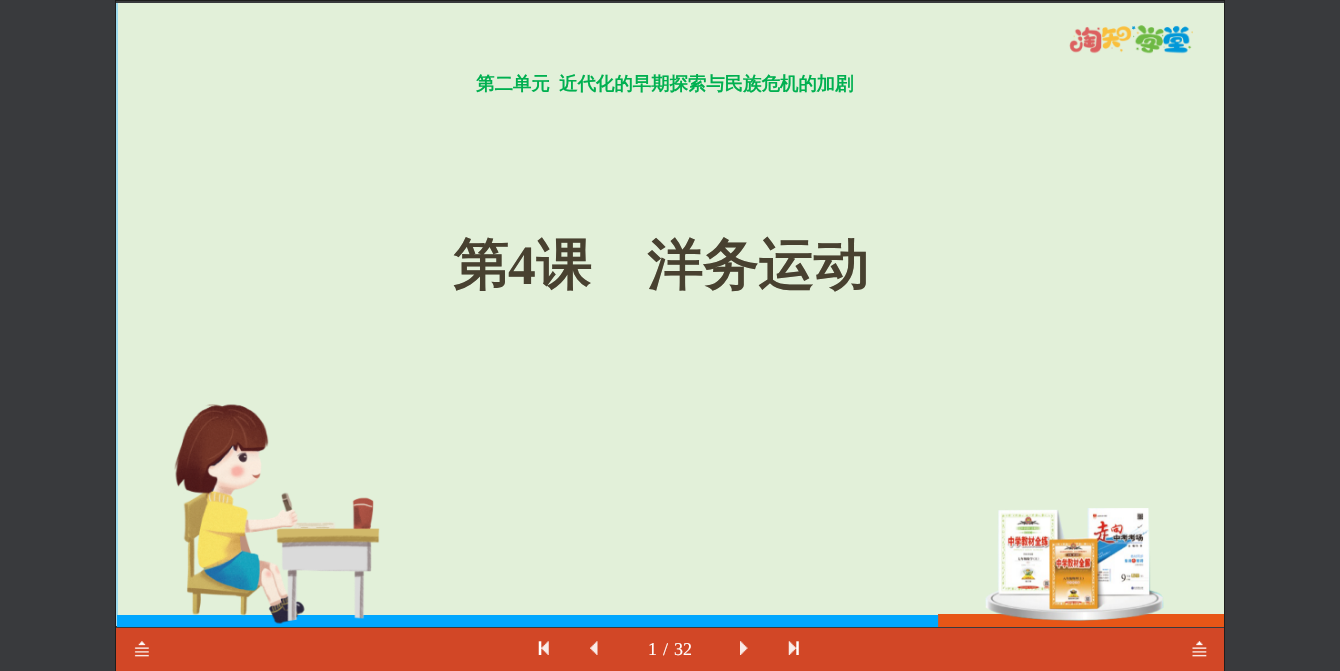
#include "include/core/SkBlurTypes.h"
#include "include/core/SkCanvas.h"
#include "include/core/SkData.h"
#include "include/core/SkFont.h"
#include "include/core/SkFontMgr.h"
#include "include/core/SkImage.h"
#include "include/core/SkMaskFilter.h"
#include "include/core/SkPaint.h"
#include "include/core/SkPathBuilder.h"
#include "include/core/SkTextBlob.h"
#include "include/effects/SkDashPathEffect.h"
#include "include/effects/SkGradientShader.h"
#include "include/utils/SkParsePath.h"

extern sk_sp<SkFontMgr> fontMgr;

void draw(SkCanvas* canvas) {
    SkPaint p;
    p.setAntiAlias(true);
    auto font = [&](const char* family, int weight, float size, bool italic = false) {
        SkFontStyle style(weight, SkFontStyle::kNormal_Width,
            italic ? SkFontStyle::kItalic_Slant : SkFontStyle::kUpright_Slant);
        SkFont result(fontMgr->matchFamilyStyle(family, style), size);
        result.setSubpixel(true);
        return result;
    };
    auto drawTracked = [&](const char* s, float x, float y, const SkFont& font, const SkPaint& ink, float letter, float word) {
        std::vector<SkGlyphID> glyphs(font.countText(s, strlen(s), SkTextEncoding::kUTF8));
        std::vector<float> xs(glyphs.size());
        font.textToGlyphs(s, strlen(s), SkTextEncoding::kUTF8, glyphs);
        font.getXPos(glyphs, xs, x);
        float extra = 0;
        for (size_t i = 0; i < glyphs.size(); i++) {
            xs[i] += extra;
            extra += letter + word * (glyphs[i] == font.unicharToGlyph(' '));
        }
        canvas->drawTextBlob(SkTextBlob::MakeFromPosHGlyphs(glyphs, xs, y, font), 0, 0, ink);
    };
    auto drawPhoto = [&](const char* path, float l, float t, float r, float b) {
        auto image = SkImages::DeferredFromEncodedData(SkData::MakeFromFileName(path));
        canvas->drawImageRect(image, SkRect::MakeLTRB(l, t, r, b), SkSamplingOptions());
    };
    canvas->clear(0xFF393A3D);
    p.setStyle(SkPaint::kStroke_Style);
    p.setStrokeWidth(1);
    p.setColor(0xFF1E1E1E);
    canvas->drawRect(SkRect::MakeLTRB(115.5f, 0.5f, 1224.5f, 670.5f), p);
    p.setStyle(SkPaint::kFill_Style);
    p.setColor(0xFF9DDAEE);
    canvas->drawRect(SkRect::MakeLTRB(116, 3, 118, 626), p);
    p.setColor(0xFFE2F0D9);
    canvas->drawRect(SkRect::MakeLTRB(118, 3, 1224, 615), p);
    drawPhoto("media/1.png", 1069, 25, 1193, 54);
    p.setColor(0xFF00A7FF);
    canvas->drawRect(SkRect::MakeLTRB(117, 615, 938, 627), p);
    p.setColor(0xFFE75617);
    canvas->drawRect(SkRect::MakeLTRB(938, 614, 1224, 627), p);
    auto font1 = font("WenQuanYi Zen Hei", 700, 18.5f);
    p.setColor(0xFF00B050);
    drawTracked("第二单元", 476, 90, font1, p, -0.1f, 0);
    drawTracked("近代化的早期探索与民族危机的加剧", 559, 90, font1, p, -0.1f, 0);
    auto font2 = font("WenQuanYi Zen Hei", 700, 55.5f);
    p.setColor(0xFF484130);
    drawTracked("第", 453, 284, font2, p, -0.1f, 0);
    auto font3 = font("Liberation Serif", 700, 55.5f);
    drawTracked("4", 508, 284, font3, p, -0.1f, 0);
    drawTracked("课", 536, 284, font2, p, -0.1f, 0);
    drawTracked("洋务运动", 647, 284, font2, p, -0.1f, 0);
    drawPhoto("media/2.png", 174, 404, 380, 624);
    drawPhoto("media/3.png", 938, 615, 939, 627);
    drawPhoto("media/4.png", 985, 508, 1164, 621);
    p.setColor(0xFFD24726);
    canvas->drawRect(SkRect::MakeLTRB(116, 628, 1224, 671), p);
    drawPhoto("media/5.png", 134, 641, 149, 657);
    drawPhoto("media/6.png", 538, 641, 549, 655);
    drawPhoto("media/7.png", 590, 641, 598, 655);
    auto font4 = font("Liberation Serif", 400, 18);
    p.setColor(0xFFFFFFFF);
    {
        const struct { const char* s; float x, y; } items[] = {
            {"1", 648, 655},
            {"/", 663, 655},
            {"32", 674, 655},
        };
        for (auto [s, x, y] : items) {
            canvas->drawString(s, x, y, font4, p);
        }
    }
    drawPhoto("media/8.png", 740, 641, 748, 655);
    drawPhoto("media/9.png", 788, 641, 799, 655);
    drawPhoto("media/10.png", 1192, 641, 1207, 657);
}
